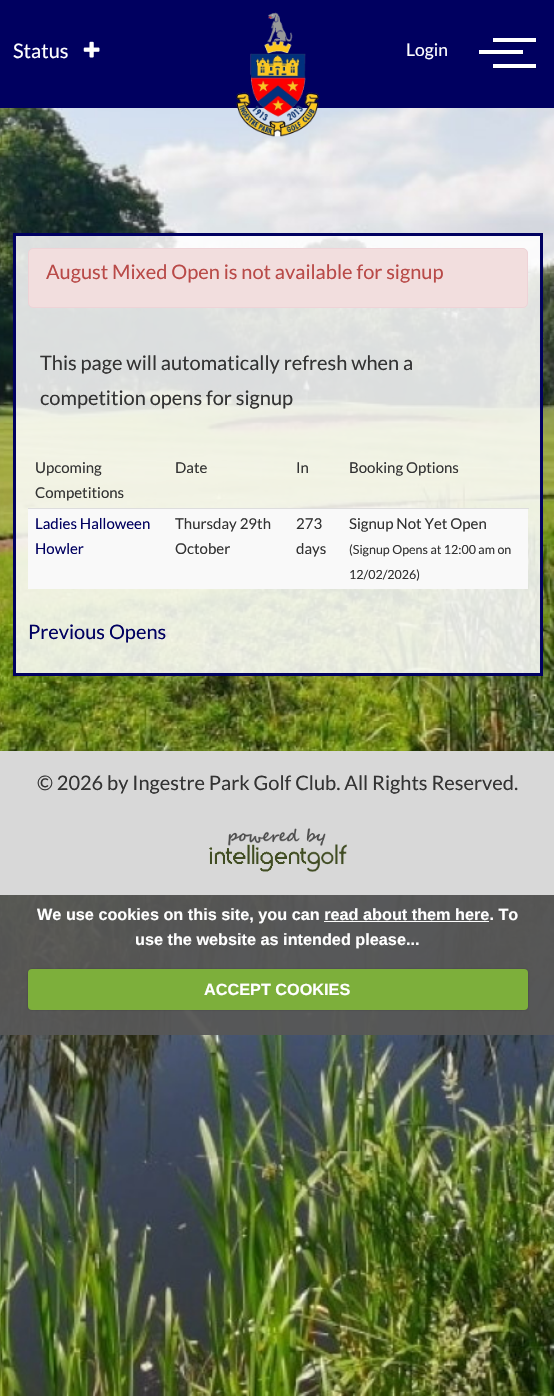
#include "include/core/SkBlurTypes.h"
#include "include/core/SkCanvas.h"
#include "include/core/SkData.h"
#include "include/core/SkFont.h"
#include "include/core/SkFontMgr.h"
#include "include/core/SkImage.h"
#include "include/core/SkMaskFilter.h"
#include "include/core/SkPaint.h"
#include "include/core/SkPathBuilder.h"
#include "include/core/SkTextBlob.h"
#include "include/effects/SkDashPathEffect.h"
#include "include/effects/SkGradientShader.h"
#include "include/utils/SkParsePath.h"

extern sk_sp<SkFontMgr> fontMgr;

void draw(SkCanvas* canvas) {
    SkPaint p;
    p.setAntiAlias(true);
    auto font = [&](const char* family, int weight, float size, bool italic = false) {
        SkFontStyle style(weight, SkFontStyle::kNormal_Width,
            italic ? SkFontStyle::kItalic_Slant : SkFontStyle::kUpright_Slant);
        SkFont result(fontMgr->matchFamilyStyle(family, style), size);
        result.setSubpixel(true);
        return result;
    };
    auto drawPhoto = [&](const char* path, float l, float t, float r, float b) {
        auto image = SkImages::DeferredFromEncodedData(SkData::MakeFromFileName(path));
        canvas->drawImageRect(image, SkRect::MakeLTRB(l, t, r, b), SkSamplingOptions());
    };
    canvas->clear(0xFFFFFFFF);
    drawPhoto("media/1.png", 0, 108, 554, 1396);
    p.setColor(0xFF000060);
    canvas->drawRect(SkRect::MakeLTRB(0, 0, 554, 108), p);
    auto font1 = font("Lato", 400, 20);
    p.setColor(0xFFFFFFFF);
    canvas->drawString("Status", 13, 58, font1, p);
    drawPhoto("media/2.png", 83, 41, 100, 58);
    drawPhoto("media/3.png", 236, 12, 319, 137);
    auto font2 = font("Lato", 400, 17.5f);
    canvas->drawString("Login", 406, 56, font2, p);
    p.setColor(0xFF000048);
    canvas->drawRect(SkRect::MakeLTRB(493, 42, 536, 43), p);
    p.setColor(0xFFFFFFFF);
    canvas->drawRect(SkRect::MakeLTRB(493, 38, 536, 42), p);
    p.setColor(0xFF000048);
    canvas->drawPath(SkPathBuilder().moveTo(479, 54).lineTo(479, 55).lineTo(523, 55).lineTo(523, 51).lineTo(522, 51).lineTo(522, 54).close().detach(), p);
    {
        const struct { float l, t, r, b; SkColor color; } items[] = {
            {479, 50, 523, 54, 0xFFFFFFFF},
            {493, 68, 536, 69, 0xFF000048},
            {493, 64, 536, 68, 0xFFFFFFFF},
        };
        for (auto [l, t, r, b, color] : items) {
            p.setColor(color);
            canvas->drawRect(SkRect::MakeLTRB(l, t, r, b), p);
        }
    }
    p.setColor(0xD9FFFFFF);
    canvas->drawRect(SkRect::MakeLTRB(14.5f, 234.5f, 541.5f, 674.5f), p);
    p.setStyle(SkPaint::kStroke_Style);
    p.setStrokeWidth(3);
    p.setColor(0xFF000060);
    canvas->drawRect(SkRect::MakeLTRB(14.5f, 234.5f, 541.5f, 674.5f), p);
    p.setStyle(SkPaint::kFill_Style);
    p.setColor(0xFFF2DEDE);
    canvas->drawRoundRect(SkRect::MakeLTRB(28.5f, 248.5f, 527.5f, 307.5f), 4.5f, 4.5f, p);
    p.setStyle(SkPaint::kStroke_Style);
    p.setStrokeWidth(1);
    p.setColor(0xFFEED3D7);
    canvas->drawRoundRect(SkRect::MakeLTRB(28.5f, 248.5f, 527.5f, 307.5f), 4.5f, 4.5f, p);
    p.setStyle(SkPaint::kFill_Style);
    p.setColor(0xFFB94A48);
    canvas->drawString("August Mixed Open is not available for signup", 46, 279, font1, p);
    p.setColor(0xFF333333);
    canvas->drawString("This page will automatically refresh when a", 40, 370, font1, p);
    canvas->drawString("competition opens for signup", 40, 405, font1, p);
    auto font3 = font("Lato", 400, 15);
    {
        const struct { const char* s; float x, y; } items[] = {
            {"Upcoming", 35, 473},
            {"Competitions", 35, 498},
            {"Date", 175, 473},
            {"In", 296, 473},
            {"Booking Options", 349, 473},
        };
        for (auto [s, x, y] : items) {
            canvas->drawString(s, x, y, font3, p);
        }
    }
    p.setColor(0xFFDDDDDD);
    canvas->drawRect(SkRect::MakeLTRB(28, 508, 529, 509), p);
    p.setColor(0xFFF9F9F9);
    canvas->drawRect(SkRect::MakeLTRB(28, 509, 528, 589), p);
    p.setColor(0xFF000060);
    canvas->drawString("Ladies Halloween", 35, 529, font3, p);
    canvas->drawString("Howler", 35, 554, font3, p);
    p.setColor(0xFF333333);
    {
        const struct { const char* s; float x, y; } items[] = {
            {"Thursday 29th", 175, 529},
            {"October", 175, 554},
            {"273", 296, 529},
            {"days", 296, 554},
            {"Signup Not Yet Open", 349, 529},
        };
        for (auto [s, x, y] : items) {
            canvas->drawString(s, x, y, font3, p);
        }
    }
    auto font4 = font("Lato", 400, 12.5f);
    canvas->drawString("(Signup Opens at 12:00 am on", 349, 554, font4, p);
    canvas->drawString("12/02/2026)", 349, 579, font4, p);
    p.setColor(0xFF000060);
    canvas->drawString("Previous Opens", 28, 639, font1, p);
    p.setColor(0xFFD8D8D8);
    canvas->drawRect(SkRect::MakeLTRB(0, 751, 554, 895), p);
    p.setColor(0xFF333333);
    canvas->drawString("© 2026 by Ingestre Park Golf Club. All Rights Reserved.", 37, 790, font1, p);
    drawPhoto("media/4.png", 209, 828, 347, 872);
    p.setColor(0xF2565656);
    canvas->drawRect(SkRect::MakeLTRB(0, 895, 554, 1035), p);
    auto font5 = font("Liberation Sans", 700, 16.25f);
    p.setColor(0xFFFFFFFF);
    canvas->drawString("We use cookies on this site, you can read about them here. To", 37, 920, font5, p);
    canvas->drawRect(SkRect::MakeLTRB(324, 921, 489, 922), p);
    canvas->drawString("use the website as intended please...", 135, 945, font5, p);
    p.setColor(0x40000000);
    p.setMaskFilter(SkMaskFilter::MakeBlur(kNormal_SkBlurStyle, 1));
    canvas->drawRoundRect(SkRect::MakeLTRB(28, 969, 528, 1010), 4, 4, p);
    p.setMaskFilter(nullptr);
    p.setColor(0xFF7DAF3B);
    canvas->drawRoundRect(SkRect::MakeLTRB(28, 969, 528, 1010), 4, 4, p);
    p.setColor(0xFFFFFFFF);
    canvas->drawString("ACCEPT COOKIES", 204, 995, font5, p);
}
